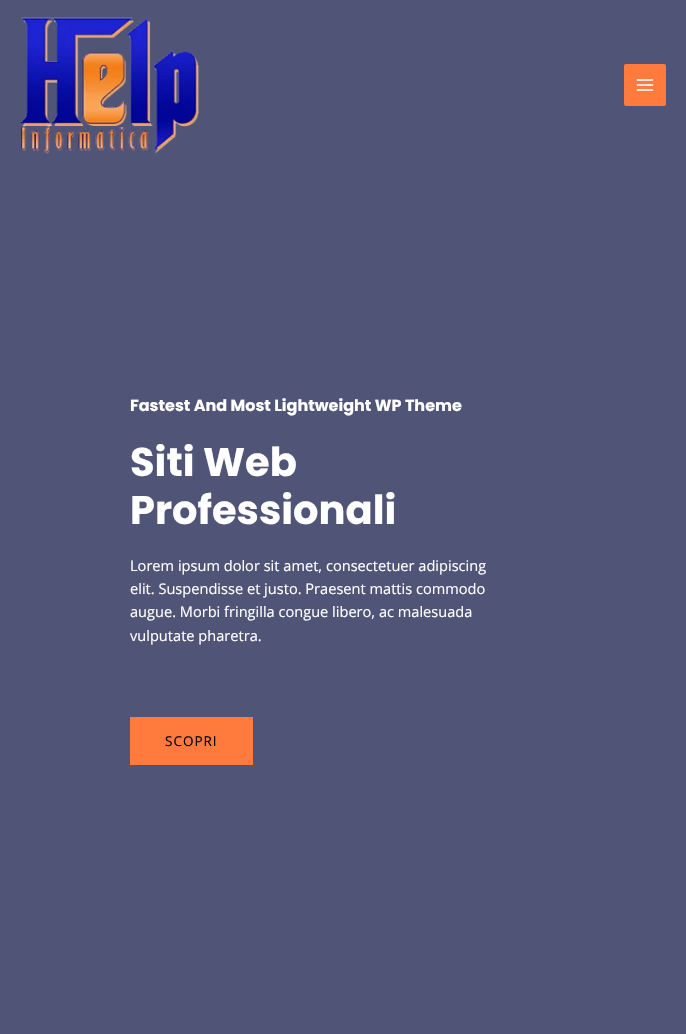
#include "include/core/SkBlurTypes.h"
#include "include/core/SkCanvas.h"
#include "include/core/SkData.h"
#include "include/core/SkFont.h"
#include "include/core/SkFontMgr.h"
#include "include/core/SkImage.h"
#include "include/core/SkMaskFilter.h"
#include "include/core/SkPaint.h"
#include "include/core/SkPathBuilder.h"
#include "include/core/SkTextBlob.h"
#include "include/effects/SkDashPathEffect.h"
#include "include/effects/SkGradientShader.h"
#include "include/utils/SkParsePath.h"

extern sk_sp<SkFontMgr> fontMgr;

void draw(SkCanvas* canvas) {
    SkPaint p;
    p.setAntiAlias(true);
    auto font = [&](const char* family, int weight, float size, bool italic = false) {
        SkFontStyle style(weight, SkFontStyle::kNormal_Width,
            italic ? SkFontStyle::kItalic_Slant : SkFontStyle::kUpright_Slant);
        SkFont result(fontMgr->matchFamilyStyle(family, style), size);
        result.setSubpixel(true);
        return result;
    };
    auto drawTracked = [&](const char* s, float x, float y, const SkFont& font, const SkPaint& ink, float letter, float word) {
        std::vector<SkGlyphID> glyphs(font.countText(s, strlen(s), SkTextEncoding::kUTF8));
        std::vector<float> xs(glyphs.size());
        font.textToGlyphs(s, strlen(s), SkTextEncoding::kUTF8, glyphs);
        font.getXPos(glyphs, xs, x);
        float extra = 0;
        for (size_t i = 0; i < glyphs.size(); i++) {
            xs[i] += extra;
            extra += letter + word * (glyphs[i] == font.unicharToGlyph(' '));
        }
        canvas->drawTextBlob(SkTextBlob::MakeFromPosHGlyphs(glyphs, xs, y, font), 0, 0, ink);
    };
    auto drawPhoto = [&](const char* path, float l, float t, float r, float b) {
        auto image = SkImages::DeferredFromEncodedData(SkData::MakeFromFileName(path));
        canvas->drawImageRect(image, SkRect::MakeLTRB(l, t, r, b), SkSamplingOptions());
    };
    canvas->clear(0xFF505578);
    drawPhoto("media/1.png", 20, 17, 199, 154);
    p.setColor(0xFFFF7A3D);
    canvas->drawRoundRect(SkRect::MakeLTRB(624, 64, 666, 106), 2, 2, p);
    drawPhoto("media/2.png", 636, 79, 654, 91);
    auto font1 = font("Poppins", 700, 16);
    p.setColor(0xFFFFFFFF);
    canvas->drawString("Fastest And Most Lightweight WP Theme", 130, 411, font1, p);
    auto font2 = font("Poppins", 700, 40);
    canvas->drawString("Siti Web", 130, 476, font2, p);
    canvas->drawString("Professionali", 130, 524, font2, p);
    auto font3 = font("Open Sans", 400, 14.6f);
    {
        const struct { const char* s; float x, y; } items[] = {
            {"Lorem ipsum dolor sit amet, consectetuer adipiscing", 130, 571},
            {"elit. Suspendisse et justo. Praesent mattis commodo", 130, 594},
            {"augue. Morbi fringilla congue libero, ac malesuada", 130, 617},
            {"vulputate pharetra.", 130, 641},
        };
        for (auto [s, x, y] : items) {
            canvas->drawString(s, x, y, font3, p);
        }
    }
    p.setColor(0xFFFF7A3D);
    canvas->drawRect(SkRect::MakeLTRB(130, 717, 253, 765), p);
    auto font4 = font("Open Sans", 400, 13.5f);
    p.setColor(0xFF000000);
    drawTracked("SCOPRI", 165, 746, font4, p, 1, 0);
}
